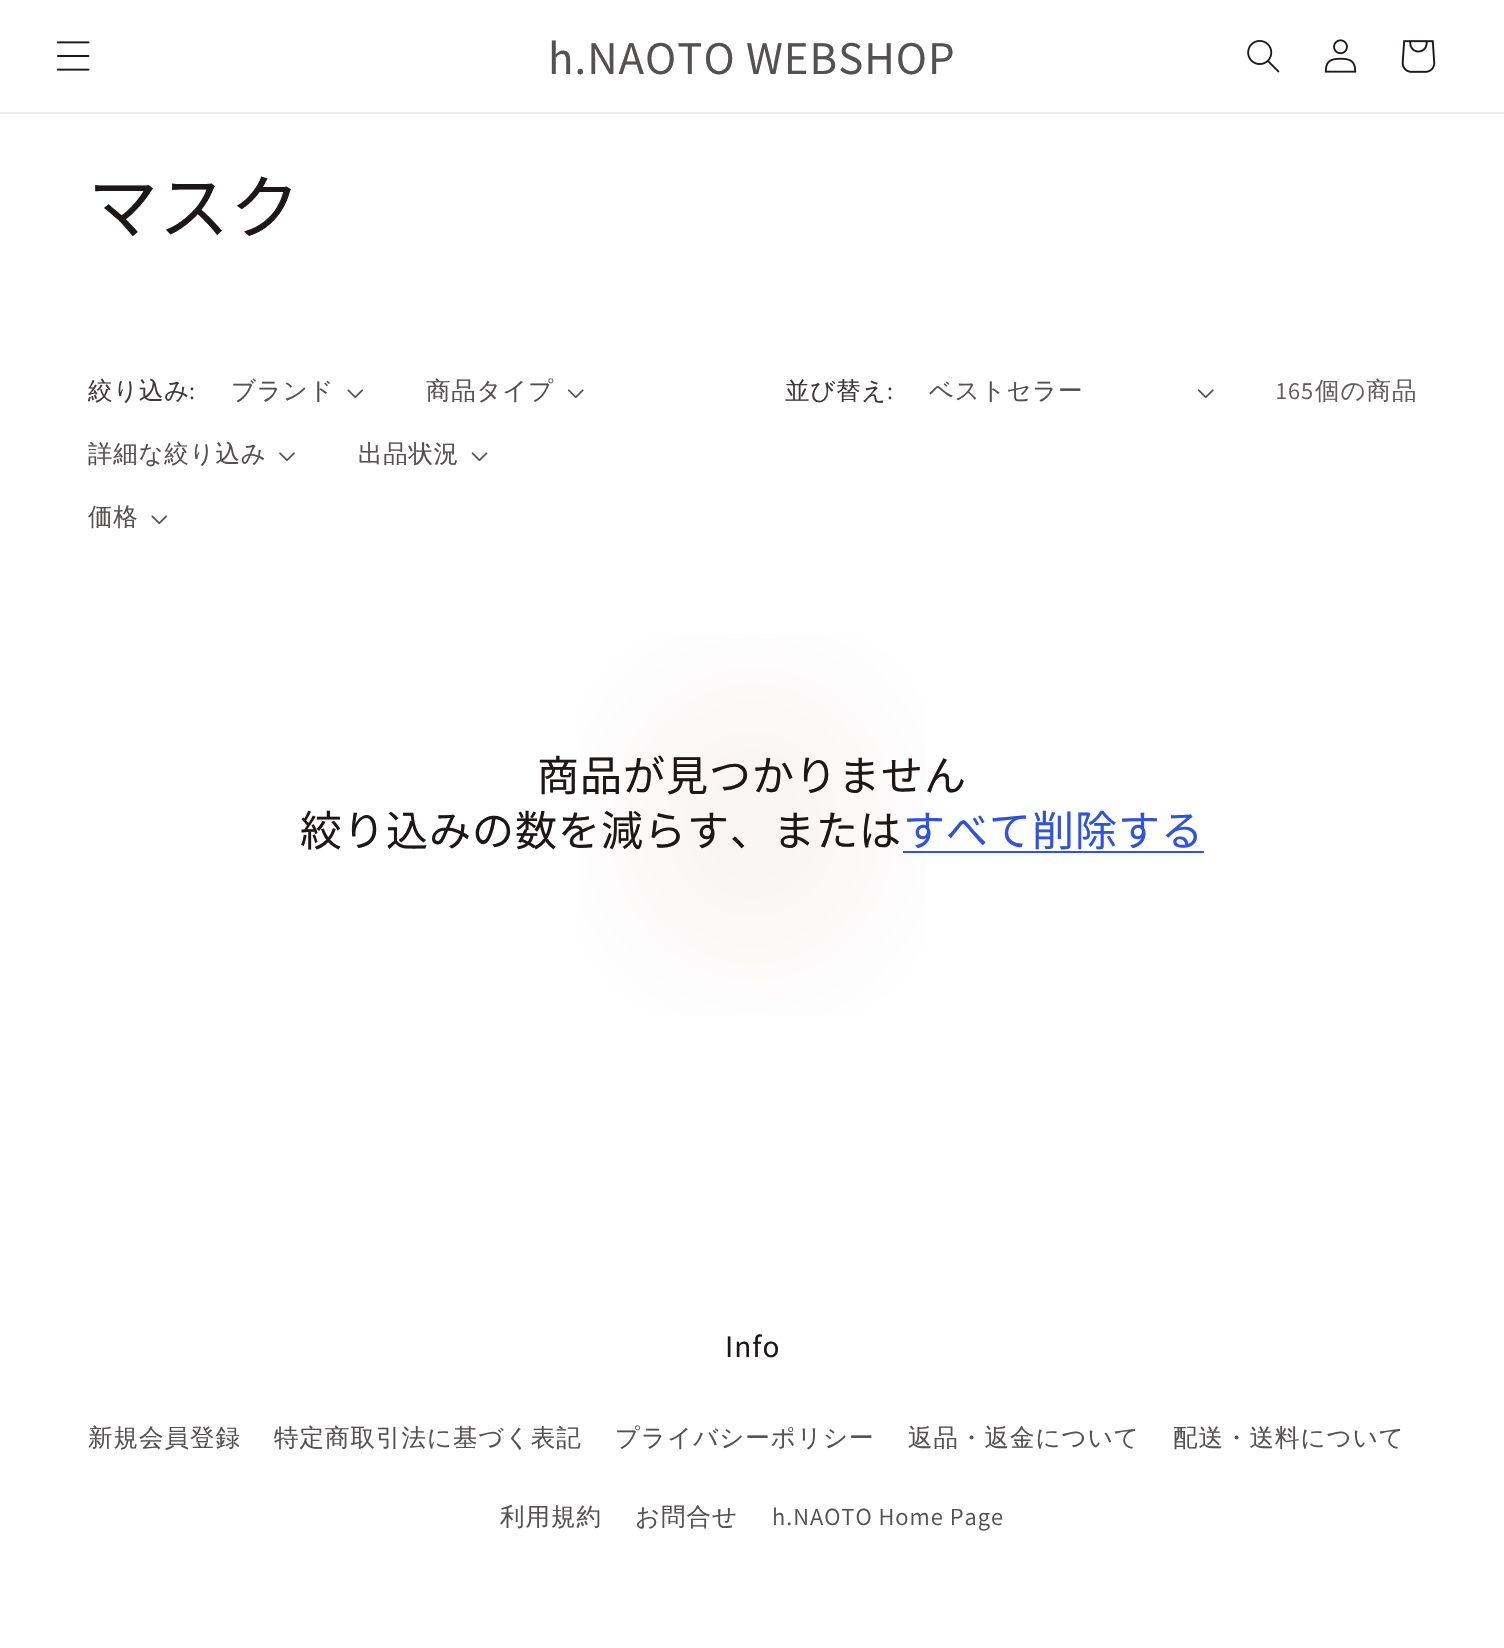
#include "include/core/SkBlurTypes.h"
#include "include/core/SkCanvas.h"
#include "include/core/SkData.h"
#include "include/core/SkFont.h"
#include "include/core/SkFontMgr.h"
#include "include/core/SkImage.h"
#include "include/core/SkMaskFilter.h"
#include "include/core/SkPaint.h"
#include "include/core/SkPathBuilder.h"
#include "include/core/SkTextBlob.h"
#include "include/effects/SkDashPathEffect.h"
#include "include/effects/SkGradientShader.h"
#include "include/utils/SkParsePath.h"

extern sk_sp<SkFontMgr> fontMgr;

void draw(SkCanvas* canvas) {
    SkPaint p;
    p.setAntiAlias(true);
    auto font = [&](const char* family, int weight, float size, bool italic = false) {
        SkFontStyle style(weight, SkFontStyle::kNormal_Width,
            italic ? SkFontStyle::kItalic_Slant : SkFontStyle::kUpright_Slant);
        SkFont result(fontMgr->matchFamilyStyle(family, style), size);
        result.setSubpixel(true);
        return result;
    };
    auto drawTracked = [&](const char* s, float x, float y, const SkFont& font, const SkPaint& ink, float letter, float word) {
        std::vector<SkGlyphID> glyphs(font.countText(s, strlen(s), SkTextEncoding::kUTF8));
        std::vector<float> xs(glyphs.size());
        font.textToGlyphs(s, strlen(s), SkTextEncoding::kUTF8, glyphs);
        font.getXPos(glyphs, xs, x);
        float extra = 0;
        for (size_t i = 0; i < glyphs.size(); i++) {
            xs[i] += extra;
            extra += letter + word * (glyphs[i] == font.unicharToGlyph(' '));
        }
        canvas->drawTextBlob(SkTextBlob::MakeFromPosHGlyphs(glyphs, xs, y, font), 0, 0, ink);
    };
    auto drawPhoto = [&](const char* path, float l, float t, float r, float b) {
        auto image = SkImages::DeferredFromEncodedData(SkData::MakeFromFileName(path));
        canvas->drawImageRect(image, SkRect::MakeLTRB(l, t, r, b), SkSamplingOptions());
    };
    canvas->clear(0xFFFFFFFF);
    p.setColor(0xFFEDECEC);
    canvas->drawRect(SkRect::MakeLTRB(0, 112, 1504, 114), p);
    drawPhoto("media/1.png", 57, 41, 90, 71);
    auto font1 = font("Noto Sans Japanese", 400, 42);
    p.setColor(0xFF565151);
    drawTracked("h.NAOTO WEBSHOP", 548, 74, font1, p, 1, 0);
    drawPhoto("media/2.png", 1247, 40, 1280, 73);
    drawPhoto("media/3.png", 1324, 39, 1357, 73);
    drawPhoto("media/4.png", 1401, 40, 1436, 73);
    auto font2 = font("Noto Sans Japanese", 400, 70);
    p.setColor(0xFF1D1717);
    drawTracked("マスク", 88, 233, font2, p, 1, 0);
    {
        const SkColor colors[] = {0xFFF9F5F4, 0xFFFFFFFF, 0xFFFFFFFF};
        const float stops[] = {0.04f, 0.2f, 0.4f};
        SkMatrix m = SkMatrix::Translate(753, 824).preScale(1064, 1166);
        p.setShader(SkGradientShader::MakeRadial({0, 0}, 1, colors, stops, 3, SkTileMode::kClamp, 0, &m));
        p.setAlpha(255);
    }
    canvas->drawRect(SkRect::MakeLTRB(580, 633, 926, 1016), p);
    {
        const SkColor colors[] = {0xFF3050DB, 0xFF3052DC, 0xFF3052DC};
        const float stops[] = {0.04f, 0.2f, 0.4f};
        SkMatrix m = SkMatrix::Translate(753, 824).preScale(1064, 1166);
        p.setShader(SkGradientShader::MakeRadial({0, 0}, 1, colors, stops, 3, SkTileMode::kClamp, 0, &m));
        p.setAlpha(255);
    }
    canvas->drawRect(SkRect::MakeLTRB(903, 851, 1204, 853), p);
    auto font3 = font("WenQuanYi Zen Hei", 500, 24.5f);
    p.setShader(nullptr);
    p.setColor(0xFF3F3A3A);
    drawTracked("絞り込み", 88, 399, font3, p, 0.75f, 0);
    auto font4 = font("Assistant", 400, 24.5f);
    drawTracked(":", 189, 399, font4, p, 0.75f, 0);
    p.setColor(0xFF565151);
    drawTracked("ブランド", 231, 399, font3, p, 0.75f, 0);
    drawPhoto("media/5.png", 347, 389, 364, 399);
    drawTracked("商品タイプ", 426, 399, font3, p, 0.75f, 0);
    drawPhoto("media/6.png", 567, 389, 584, 399);
    drawTracked("詳細な絞り込み", 88, 462, font3, p, 0.75f, 0);
    drawPhoto("media/7.png", 279, 452, 295, 461);
    drawTracked("出品状況", 358, 462, font3, p, 0.75f, 0);
    drawPhoto("media/8.png", 471, 452, 488, 462);
    drawTracked("価格", 88, 525, font3, p, 0.75f, 0);
    drawPhoto("media/5.png", 151, 515, 168, 525);
    p.setColor(0xFF3F3A3A);
    drawTracked("並び替え", 785, 399, font3, p, 0.75f, 0);
    drawTracked(":", 887, 399, font4, p, 0.75f, 0);
    p.setColor(0xFF565151);
    drawTracked("ベストセラー", 929, 399, font3, p, 0.75f, 0);
    drawPhoto("media/6.png", 1197, 389, 1214, 399);
    p.setColor(0xFF615D5D);
    drawTracked("165", 1276, 399, font4, p, 1, 0);
    drawTracked("個の商品", 1315, 399, font3, p, 1, 0);
    p.setColor(0xFF1D1717);
    drawTracked("商品が見つかりません", 537, 791, font1, p, 1, 0);
    drawTracked("絞り込みの数を減らす、または", 300, 846, font1, p, 1, 0);
    p.setColor(0xFF3052DC);
    drawTracked("すべて削除する", 903, 846, font1, p, 1, 0);
    auto font5 = font("Noto Sans Japanese", 400, 28);
    p.setColor(0xFF1D1717);
    drawTracked("Info", 725, 1357, font5, p, 1, 0);
    p.setColor(0xFF565151);
    {
        const struct { const char* s; float x, y; } items[] = {
            {"新規会員登録", 88, 1446},
            {"特定商取引法に基づく表記", 274, 1446},
            {"プライバシーポリシー", 615, 1446},
            {"返品・返金について", 908, 1446},
            {"配送・送料について", 1173, 1446},
            {"利用規約", 500, 1525},
            {"お問合せ", 635, 1525},
        };
        for (auto [s, x, y] : items) {
            drawTracked(s, x, y, font3, p, 1, 0);
        }
    }
    drawTracked("h.NAOTO Home Page", 772, 1525, font4, p, 1, 0);
}
